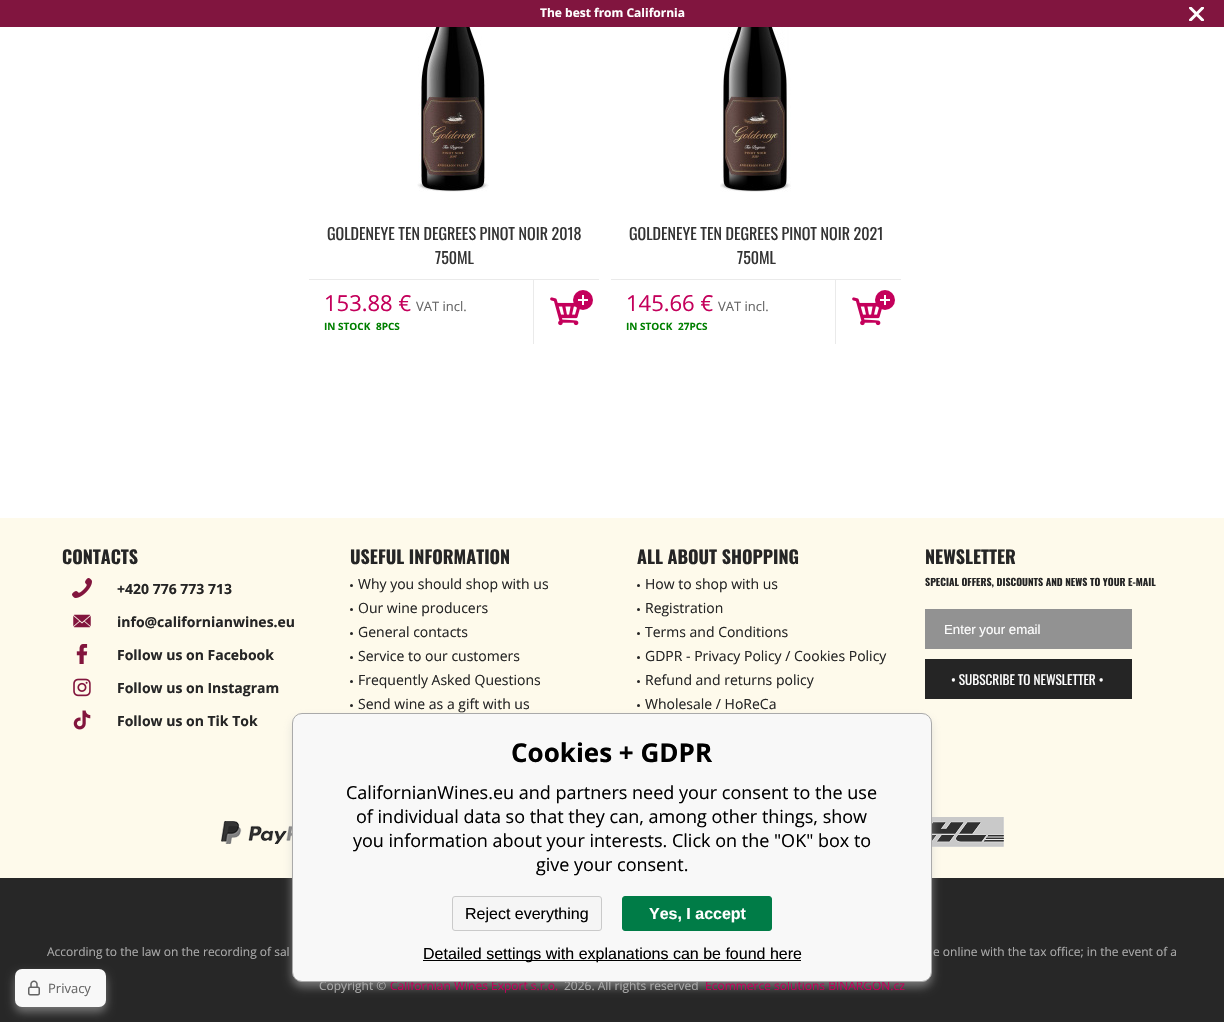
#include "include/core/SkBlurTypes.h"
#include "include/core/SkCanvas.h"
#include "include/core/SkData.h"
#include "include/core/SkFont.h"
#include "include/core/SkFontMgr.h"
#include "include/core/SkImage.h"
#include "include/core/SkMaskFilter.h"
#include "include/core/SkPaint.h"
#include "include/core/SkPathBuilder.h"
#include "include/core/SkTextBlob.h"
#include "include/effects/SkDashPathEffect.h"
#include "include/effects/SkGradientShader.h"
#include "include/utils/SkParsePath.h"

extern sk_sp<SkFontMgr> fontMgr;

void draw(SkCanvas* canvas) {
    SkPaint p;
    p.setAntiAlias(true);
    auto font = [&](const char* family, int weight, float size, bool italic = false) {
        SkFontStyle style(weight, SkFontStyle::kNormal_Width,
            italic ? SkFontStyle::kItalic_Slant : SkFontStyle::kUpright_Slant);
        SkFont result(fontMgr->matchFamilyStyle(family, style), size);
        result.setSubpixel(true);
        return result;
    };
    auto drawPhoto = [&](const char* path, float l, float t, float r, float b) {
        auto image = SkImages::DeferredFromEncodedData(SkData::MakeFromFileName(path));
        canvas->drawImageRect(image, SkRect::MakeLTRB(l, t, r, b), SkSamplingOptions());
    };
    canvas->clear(0xFFFFFFFF);
    p.setColor(0xFF81153F);
    canvas->drawRect(SkRect::MakeLTRB(0, 0, 1224, 27), p);
    auto font1 = font("Open Sans", 700, 12);
    p.setColor(0xFFFFFFFF);
    canvas->drawString("The best from California", 540, 17, font1, p);
    canvas->save();
    canvas->clipRect(SkRect::MakeLTRB(1189, 7, 1204, 21));
    p.setStyle(SkPaint::kStroke_Style);
    p.setStrokeWidth(3);
    p.setStrokeCap(SkPaint::kRound_Cap);
    canvas->drawPath(SkPathBuilder().moveTo(1190.5f, 8).lineTo(1202.5f, 20).moveTo(1190.5f, 20).lineTo(1202.5f, 8).detach(), p);
    canvas->restore();
    drawPhoto("media/1.png", 417, 27, 489, 192);
    auto font2 = font("Oswald", 400, 16);
    p.setStyle(SkPaint::kFill_Style);
    p.setColor(0xFF333333);
    canvas->drawString("GOLDENEYE TEN DEGREES PINOT NOIR 2018", 327, 240, font2, p);
    canvas->drawString("750ML", 435, 264, font2, p);
    p.setColor(0xFFEAEAEA);
    canvas->drawRect(SkRect::MakeLTRB(309, 279, 599, 280), p);
    canvas->drawRect(SkRect::MakeLTRB(533, 280, 534, 344), p);
    auto font3 = font("Open Sans", 400, 22);
    p.setColor(0xFFC4005B);
    canvas->drawString("153.88 €", 324, 311, font3, p);
    auto font4 = font("Open Sans", 400, 13);
    p.setColor(0xFF666666);
    canvas->drawString("VAT incl.", 416, 311, font4, p);
    auto font5 = font("Open Sans", 700, 10);
    p.setColor(0xFF008000);
    canvas->drawString("IN STOCK", 324, 330, font5, p);
    canvas->drawString("8PCS", 376, 330, font5, p);
    drawPhoto("media/2.png", 550, 297, 580, 326);
    p.setColor(0xFFC4005B);
    canvas->drawCircle(583, 300, 10, p);
    p.setColor(0xFFFFFFFF);
    canvas->drawRect(SkRect::MakeLTRB(578, 299, 588, 301), p);
    canvas->drawRect(SkRect::MakeLTRB(582, 295, 584, 305), p);
    drawPhoto("media/3.png", 720, 27, 791, 192);
    p.setColor(0xFF333333);
    canvas->drawString("GOLDENEYE TEN DEGREES PINOT NOIR 2021", 629, 240, font2, p);
    canvas->drawString("750ML", 737, 264, font2, p);
    p.setColor(0xFFEAEAEA);
    canvas->drawRect(SkRect::MakeLTRB(611, 279, 901, 280), p);
    canvas->drawRect(SkRect::MakeLTRB(835, 280, 836, 344), p);
    p.setColor(0xFFC4005B);
    canvas->drawString("145.66 €", 626, 311, font3, p);
    p.setColor(0xFF666666);
    canvas->drawString("VAT incl.", 718, 311, font4, p);
    p.setColor(0xFF008000);
    canvas->drawString("IN STOCK", 626, 330, font5, p);
    canvas->drawString("27PCS", 678, 330, font5, p);
    drawPhoto("media/2.png", 852, 297, 882, 326);
    p.setColor(0xFFC4005B);
    canvas->drawCircle(885, 300, 10, p);
    {
        const struct { float l, t, r, b; SkColor color; } items[] = {
            {880, 299, 890, 301, 0xFFFFFFFF},
            {884, 295, 886, 305, 0xFFFFFFFF},
            {0, 518, 1224, 878, 0xFFFEFAEB},
        };
        for (auto [l, t, r, b, color] : items) {
            p.setColor(color);
            canvas->drawRect(SkRect::MakeLTRB(l, t, r, b), p);
        }
    }
    auto font6 = font("Oswald", 700, 18);
    p.setColor(0xFF252525);
    canvas->drawString("CONTACTS", 62, 564, font6, p);
    drawPhoto("media/4.png", 72, 578, 92, 598);
    auto font7 = font("Open Sans", 700, 14);
    canvas->drawString("+420 776 773 713", 117, 594, font7, p);
    drawPhoto("media/5.png", 73, 614, 91, 628);
    canvas->drawString("info@californianwines.eu", 117, 627, font7, p);
    drawPhoto("media/6.png", 76, 644, 88, 664);
    canvas->drawString("Follow us on Facebook", 117, 660, font7, p);
    drawPhoto("media/7.png", 73, 678, 91, 697);
    canvas->drawString("Follow us on Instagram", 117, 693, font7, p);
    drawPhoto("media/8.png", 73, 710, 91, 730);
    canvas->drawString("Follow us on Tik Tok", 117, 726, font7, p);
    canvas->drawString("USEFUL INFORMATION", 350, 564, font6, p);
    canvas->drawCircle(351.5f, 585.5f, 1.5f, p);
    auto font8 = font("Open Sans", 400, 14);
    canvas->drawString("Why you should shop with us", 358, 589, font8, p);
    canvas->drawCircle(351.5f, 609.5f, 1.5f, p);
    canvas->drawString("Our wine producers", 358, 613, font8, p);
    canvas->drawCircle(351.5f, 633.5f, 1.5f, p);
    canvas->drawString("General contacts", 358, 637, font8, p);
    canvas->drawCircle(351.5f, 657.5f, 1.5f, p);
    canvas->drawString("Service to our customers", 358, 661, font8, p);
    canvas->drawCircle(351.5f, 681.5f, 1.5f, p);
    canvas->drawString("Frequently Asked Questions", 358, 685, font8, p);
    canvas->drawCircle(351.5f, 705.5f, 1.5f, p);
    canvas->drawString("Send wine as a gift with us", 358, 709, font8, p);
    canvas->drawString("ALL ABOUT SHOPPING", 637, 564, font6, p);
    canvas->drawCircle(638.5f, 585.5f, 1.5f, p);
    canvas->drawString("How to shop with us", 645, 589, font8, p);
    canvas->drawCircle(638.5f, 609.5f, 1.5f, p);
    canvas->drawString("Registration", 645, 613, font8, p);
    canvas->drawCircle(638.5f, 633.5f, 1.5f, p);
    canvas->drawString("Terms and Conditions", 645, 637, font8, p);
    canvas->drawCircle(638.5f, 657.5f, 1.5f, p);
    canvas->drawString("GDPR - Privacy Policy / Cookies Policy", 645, 661, font8, p);
    canvas->drawCircle(638.5f, 681.5f, 1.5f, p);
    canvas->drawString("Refund and returns policy", 645, 685, font8, p);
    canvas->drawCircle(638.5f, 705.5f, 1.5f, p);
    canvas->drawString("Wholesale / HoReCa", 645, 709, font8, p);
    canvas->drawString("NEWSLETTER", 925, 564, font6, p);
    auto font9 = font("Oswald", 700, 10);
    canvas->drawString("SPECIAL OFFERS, DISCOUNTS AND NEWS TO YOUR E-MAIL", 925, 586, font9, p);
    p.setColor(0xFF929292);
    canvas->drawRect(SkRect::MakeLTRB(925, 609, 1132, 649), p);
    auto font10 = font("Liberation Sans", 400, 13.25f);
    p.setColor(0xFFFFFFFF);
    canvas->drawString("Enter your email", 944, 634, font10, p);
    p.setColor(0xFF252525);
    canvas->drawRect(SkRect::MakeLTRB(925, 659, 1132, 699), p);
    auto font11 = font("Oswald", 400, 13.25f);
    p.setColor(0xFFFFFFFF);
    canvas->drawString("• SUBSCRIBE TO NEWSLETTER •", 951, 685, font11, p);
    drawPhoto("media/9.png", 221, 821, 292, 844);
    drawPhoto("media/10.png", 932, 817, 1004, 847);
    p.setColor(0xFF272727);
    canvas->drawRect(SkRect::MakeLTRB(0, 878, 1224, 1022), p);
    p.setColor(0x80C8C8C8);
    p.setMaskFilter(SkMaskFilter::MakeBlur(kNormal_SkBlurStyle, 5));
    canvas->drawRoundRect(SkRect::MakeLTRB(292, 718, 932, 987), 10, 10, p);
    p.setMaskFilter(nullptr);
    auto font12 = font("Open Sans", 400, 12);
    p.setColor(0xFFAAAAAA);
    canvas->drawString("Copyright ©", 319, 990, font12, p);
    p.setColor(0xFFC4005B);
    canvas->drawString("Californian Wines Export s.r.o.", 390, 990, font12, p);
    p.setColor(0xFFAAAAAA);
    canvas->drawString("2026. All rights reserved", 564, 990, font12, p);
    p.setColor(0xFFC4005B);
    canvas->drawString("Ecommerce solutions BINARGON.cz", 705, 990, font12, p);
    p.setColor(0xFFF8F8F8);
    canvas->drawRoundRect(SkRect::MakeLTRB(292.5f, 713.5f, 931.5f, 981.5f), 9.5f, 9.5f, p);
    p.setStyle(SkPaint::kStroke_Style);
    p.setStrokeWidth(1);
    p.setStrokeCap(SkPaint::kButt_Cap);
    p.setColor(0xFFAAAAAA);
    canvas->drawRoundRect(SkRect::MakeLTRB(292.5f, 713.5f, 931.5f, 981.5f), 9.5f, 9.5f, p);
    auto font13 = font("Open Sans", 700, 26);
    p.setStyle(SkPaint::kFill_Style);
    p.setColor(0xFF000000);
    canvas->drawString("Cookies + GDPR", 511, 762, font13, p);
    auto font14 = font("Open Sans", 400, 18);
    {
        const struct { const char* s; float x, y; } items[] = {
            {"CalifornianWines.eu and partners need your consent to the use", 346, 799},
            {"of individual data so that they can, among other things, show", 356, 823},
            {"you information about your interests. Click on the \"OK\" box to", 353, 847},
            {"give your consent.", 536, 871},
        };
        for (auto [s, x, y] : items) {
            canvas->drawString(s, x, y, font14, p);
        }
    }
    p.setColor(0xFFF5F5F5);
    canvas->drawRoundRect(SkRect::MakeLTRB(452.5f, 896.5f, 601.5f, 930.5f), 2.5f, 2.5f, p);
    p.setStyle(SkPaint::kStroke_Style);
    p.setColor(0xFFCACACA);
    canvas->drawRoundRect(SkRect::MakeLTRB(452.5f, 896.5f, 601.5f, 930.5f), 2.5f, 2.5f, p);
    auto font15 = font("Liberation Sans", 400, 16);
    p.setStyle(SkPaint::kFill_Style);
    p.setColor(0xFF000000);
    canvas->drawString("Reject everything", 465, 919, font15, p);
    p.setColor(0xFF007C47);
    canvas->drawRoundRect(SkRect::MakeLTRB(622.5f, 896.5f, 771.5f, 930.5f), 2.5f, 2.5f, p);
    p.setStyle(SkPaint::kStroke_Style);
    canvas->drawRoundRect(SkRect::MakeLTRB(622.5f, 896.5f, 771.5f, 930.5f), 2.5f, 2.5f, p);
    auto font16 = font("Liberation Sans", 700, 16);
    p.setStyle(SkPaint::kFill_Style);
    p.setColor(0xFFFFFFFF);
    canvas->drawString("Yes, I accept", 649, 919, font16, p);
    p.setColor(0xFF000000);
    canvas->drawRect(SkRect::MakeLTRB(423, 960, 801, 961), p);
    canvas->drawString("Detailed settings with explanations can be found here", 423, 959, font15, p);
    p.setColor(0x80C8C8C8);
    p.setMaskFilter(SkMaskFilter::MakeBlur(kNormal_SkBlurStyle, 5));
    canvas->drawRoundRect(SkRect::MakeLTRB(15, 974, 106, 1012), 7, 7, p);
    p.setMaskFilter(nullptr);
    p.setColor(0xFFF8F8F8);
    canvas->drawRoundRect(SkRect::MakeLTRB(15, 969, 106, 1007), 7, 7, p);
    drawPhoto("media/11.png", 28, 980, 40, 996);
    p.setColor(0xFF666666);
    canvas->drawString("Privacy", 48, 993, font4, p);
    p.setColor(0xFFAAAAAA);
    canvas->drawString("According to the law on the recording of sal", 47, 956, font12, p);
    canvas->drawString("e online with the tax office; in the event of a", 933, 956, font12, p);
}
